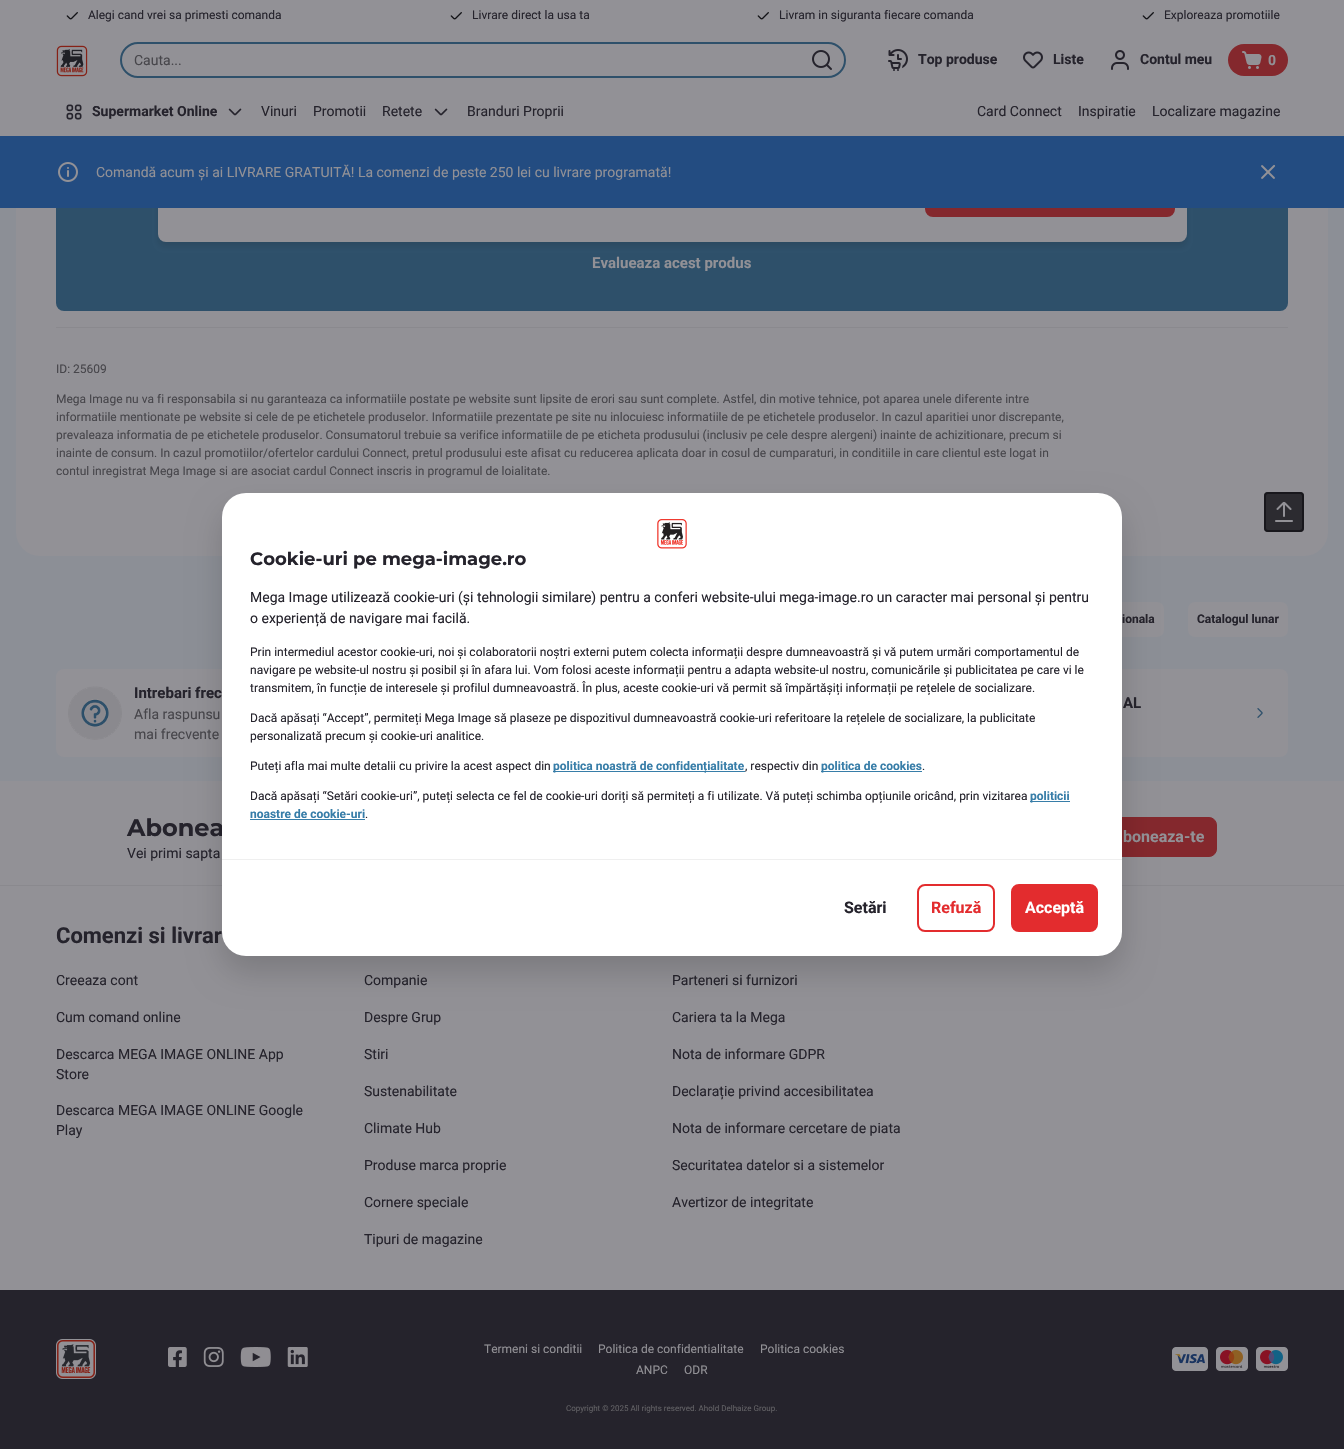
#include "include/core/SkBlurTypes.h"
#include "include/core/SkCanvas.h"
#include "include/core/SkData.h"
#include "include/core/SkFont.h"
#include "include/core/SkFontMgr.h"
#include "include/core/SkImage.h"
#include "include/core/SkMaskFilter.h"
#include "include/core/SkPaint.h"
#include "include/core/SkPathBuilder.h"
#include "include/core/SkTextBlob.h"
#include "include/effects/SkDashPathEffect.h"
#include "include/effects/SkGradientShader.h"
#include "include/utils/SkParsePath.h"

extern sk_sp<SkFontMgr> fontMgr;

void draw(SkCanvas* canvas) {
    SkPaint p;
    p.setAntiAlias(true);
    auto font = [&](const char* family, int weight, float size, bool italic = false) {
        SkFontStyle style(weight, SkFontStyle::kNormal_Width,
            italic ? SkFontStyle::kItalic_Slant : SkFontStyle::kUpright_Slant);
        SkFont result(fontMgr->matchFamilyStyle(family, style), size);
        result.setSubpixel(true);
        return result;
    };
    auto drawPhoto = [&](const char* path, float l, float t, float r, float b) {
        auto image = SkImages::DeferredFromEncodedData(SkData::MakeFromFileName(path));
        canvas->drawImageRect(image, SkRect::MakeLTRB(l, t, r, b), SkSamplingOptions());
    };
    canvas->clear(0xFF929196);
    p.setColor(0xFF8C8F96);
    canvas->drawRect(SkRect::MakeLTRB(0, 208, 1344, 781), p);
    p.setColor(0xFF929196);
    canvas->drawRoundRect(SkRect::MakeLTRB(16, -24, 1328, 556), 24, 24, p);
    drawPhoto("media/1.png", 66, 12, 78, 20);
    auto font1 = font("Roboto", 400, 12);
    p.setColor(0xFF25232C);
    canvas->drawString("Alegi cand vrei sa primesti comanda", 88, 19, font1, p);
    drawPhoto("media/1.png", 450, 12, 462, 20);
    canvas->drawString("Livrare direct la usa ta", 472, 19, font1, p);
    drawPhoto("media/1.png", 757, 12, 769, 20);
    canvas->drawString("Livram in siguranta fiecare comanda", 779, 19, font1, p);
    drawPhoto("media/1.png", 1142, 12, 1154, 20);
    canvas->drawString("Exploreaza promotiile", 1164, 19, font1, p);
    drawPhoto("media/2.png", 56, 45, 88, 77);
    p.setStyle(SkPaint::kStroke_Style);
    p.setStrokeWidth(2);
    p.setColor(0xFF2E506A);
    canvas->drawRoundRect(SkRect::MakeLTRB(121, 43, 845, 77), 17, 17, p);
    auto font2 = font("Roboto", 400, 14);
    p.setStyle(SkPaint::kFill_Style);
    p.setColor(0xFF47464B);
    canvas->drawString("Cauta...", 134, 65, font2, p);
    drawPhoto("media/3.png", 812, 50, 832, 70);
    drawPhoto("media/4.png", 888, 49, 908, 71);
    auto font3 = font("Roboto", 700, 14);
    p.setColor(0xFF25232C);
    canvas->drawString("Top produse", 918, 64, font3, p);
    drawPhoto("media/5.png", 1023, 51, 1043, 69);
    canvas->drawString("Liste", 1053, 64, font3, p);
    drawPhoto("media/6.png", 1111, 50, 1129, 70);
    canvas->drawString("Contul meu", 1140, 64, font3, p);
    p.setColor(0xFF84282D);
    canvas->drawRoundRect(SkRect::MakeLTRB(1228, 44, 1288, 76), 16, 16, p);
    drawPhoto("media/7.png", 1242, 51, 1262, 69);
    p.setColor(0xFF929196);
    canvas->drawString("0", 1268, 65, font3, p);
    drawPhoto("media/8.png", 66, 104, 82, 120);
    p.setColor(0xFF25232C);
    canvas->drawString("Supermarket Online", 92, 116, font3, p);
    drawPhoto("media/9.png", 228, 108, 242, 116);
    {
        const struct { const char* s; float x, y; } items[] = {
            {"Vinuri", 261, 116},
            {"Promotii", 313, 116},
            {"Retete", 382, 116},
        };
        for (auto [s, x, y] : items) {
            canvas->drawString(s, x, y, font2, p);
        }
    }
    drawPhoto("media/9.png", 434, 108, 448, 116);
    {
        const struct { const char* s; float x, y; } items[] = {
            {"Branduri Proprii", 467, 116},
            {"Card Connect", 977, 116},
            {"Inspiratie", 1078, 116},
            {"Localizare magazine", 1152, 116},
        };
        for (auto [s, x, y] : items) {
            canvas->drawString(s, x, y, font2, p);
        }
    }
    p.setColor(0xFF2E506A);
    canvas->drawRoundRect(SkRect::MakeLTRB(56, 157, 1288, 311), 8, 8, p);
    p.setColor(0x1A131216);
    p.setMaskFilter(SkMaskFilter::MakeBlur(kNormal_SkBlurStyle, 2.5f));
    canvas->drawRoundRect(SkRect::MakeLTRB(158, 149, 1187, 247), 8, 8, p);
    p.setMaskFilter(nullptr);
    p.setColor(0xFF929196);
    canvas->drawRoundRect(SkRect::MakeLTRB(158, 144, 1187, 242), 8, 8, p);
    p.setColor(0xFF84282D);
    canvas->drawRoundRect(SkRect::MakeLTRB(926, 170, 1174, 216), 7, 7, p);
    p.setStyle(SkPaint::kStroke_Style);
    canvas->drawRoundRect(SkRect::MakeLTRB(926, 170, 1174, 216), 7, 7, p);
    p.setStyle(SkPaint::kFill_Style);
    p.setColor(0xFF234C81);
    canvas->drawRect(SkRect::MakeLTRB(0, 136, 1344, 208), p);
    drawPhoto("media/10.png", 58, 162, 78, 182);
    p.setColor(0xFF929196);
    canvas->drawString("Comandă acum și ai LIVRARE GRATUITĂ! La comenzi de peste 250 lei cu livrare programată!", 96, 177, font2, p);
    drawPhoto("media/11.png", 1261, 164, 1276, 179);
    auto font4 = font("Roboto", 700, 15);
    canvas->drawString("Evalueaza acest produs", 592, 268, font4, p);
    p.setColor(0xFF8A898E);
    canvas->drawRect(SkRect::MakeLTRB(56, 327, 1288, 328), p);
    p.setColor(0xFF47464B);
    {
        const struct { const char* s; float x, y; } items[] = {
            {"ID: 25609", 56, 373},
            {"Mega Image nu va fi responsabila si nu garanteaza ca informatiile postate pe website sunt lipsite de erori sau sunt complete. Astfel, din motive tehnice, pot aparea unele diferente intre", 56, 403},
            {"informatiile mentionate pe website si cele de pe etichetele produselor. Informatiile prezentate pe site nu inlocuiesc informatiile de pe etichetele produselor. In cazul aparitiei unor discrepante,", 56, 421},
            {"prevaleaza informatia de pe etichetele produselor. Consumatorul trebuie sa verifice informatiile de pe eticheta produsului (inclusiv pe cele despre alergeni) inainte de achizitionare, precum si", 56, 439},
            {"inainte de consum. In cazul promotiilor/ofertelor cardului Connect, pretul produsului este afisat cu reducerea aplicata doar in cosul de cumparaturi, in conditiile in care clientul este logat in", 56, 457},
            {"contul inregistrat Mega Image si are asociat cardul Connect inscris in programul de loialitate.", 56, 475},
        };
        for (auto [s, x, y] : items) {
            canvas->drawString(s, x, y, font1, p);
        }
    }
    p.setColor(0xFF2C2B30);
    canvas->drawRoundRect(SkRect::MakeLTRB(1264, 492, 1304, 532), 4, 4, p);
    p.setStyle(SkPaint::kStroke_Style);
    p.setColor(0xCC131216);
    canvas->drawRoundRect(SkRect::MakeLTRB(1265, 493, 1303, 531), 3, 3, p);
    drawPhoto("media/12.png", 1275, 501, 1293, 522);
    p.setStyle(SkPaint::kFill_Style);
    p.setColor(0xFF929196);
    canvas->drawRoundRect(SkRect::MakeLTRB(1031, 602, 1164, 637), 7, 7, p);
    auto font5 = font("Roboto", 700, 12);
    p.setColor(0xFF25232C);
    canvas->drawString("ionala", 1122, 623, font5, p);
    p.setColor(0xFF929196);
    canvas->drawRoundRect(SkRect::MakeLTRB(1188, 602, 1288, 637), 7, 7, p);
    p.setColor(0xFF25232C);
    canvas->drawString("Catalogul lunar", 1197, 623, font5, p);
    p.setColor(0xFF929196);
    canvas->drawRoundRect(SkRect::MakeLTRB(56, 669, 352, 757), 8, 8, p);
    drawPhoto("media/13.png", 68, 686, 122, 740);
    p.setColor(0xFF25232C);
    canvas->drawString("Intrebari frec", 134, 698, font4, p);
    p.setColor(0xFF47464B);
    canvas->drawString("Afla raspunsu", 134, 719, font2, p);
    canvas->drawString("mai frecvente", 134, 739, font2, p);
    p.setColor(0xFF929196);
    canvas->drawRoundRect(SkRect::MakeLTRB(992, 669, 1288, 757), 8, 8, p);
    p.setColor(0xFF25232C);
    canvas->drawString("AL", 1123, 708, font4, p);
    drawPhoto("media/14.png", 1257, 708, 1263, 718);
    p.setColor(0xFF8A898E);
    canvas->drawRect(SkRect::MakeLTRB(0, 885, 1344, 886), p);
    auto font6 = font("Montserrat", 100, 24);
    p.setColor(0xFF25232C);
    canvas->drawString("Abonea", 127, 836, font6, p);
    canvas->drawString("Vei primi sapta", 127, 858, font2, p);
    p.setColor(0xFF84282D);
    canvas->drawRoundRect(SkRect::MakeLTRB(1099.5f, 817.5f, 1216.5f, 856.5f), 7.5f, 7.5f, p);
    p.setStyle(SkPaint::kStroke_Style);
    p.setStrokeWidth(1);
    canvas->drawRoundRect(SkRect::MakeLTRB(1099.5f, 817.5f, 1216.5f, 856.5f), 7.5f, 7.5f, p);
    auto font7 = font("Roboto", 700, 16);
    p.setStyle(SkPaint::kFill_Style);
    p.setColor(0xFF929196);
    canvas->drawString("boneaza-te", 1123, 842, font7, p);
    auto font8 = font("Roboto", 700, 22);
    p.setColor(0xFF25232C);
    canvas->drawString("Comenzi si livrar", 56, 943, font8, p);
    {
        const struct { const char* s; float x, y; } items[] = {
            {"Creeaza cont", 56, 985},
            {"Cum comand online", 56, 1022},
            {"Descarca MEGA IMAGE ONLINE App", 56, 1059},
            {"Store", 56, 1079},
            {"Descarca MEGA IMAGE ONLINE Google", 56, 1115},
            {"Play", 56, 1135},
            {"Companie", 364, 985},
            {"Despre Grup", 364, 1022},
            {"Stiri", 364, 1059},
            {"Sustenabilitate", 364, 1096},
            {"Climate Hub", 364, 1133},
            {"Produse marca proprie", 364, 1170},
            {"Cornere speciale", 364, 1207},
            {"Tipuri de magazine", 364, 1244},
            {"Parteneri si furnizori", 672, 985},
            {"Cariera ta la Mega", 672, 1022},
            {"Nota de informare GDPR", 672, 1059},
            {"Declarație privind accesibilitatea", 672, 1096},
            {"Nota de informare cercetare de piata", 672, 1133},
            {"Securitatea datelor si a sistemelor", 672, 1170},
            {"Avertizor de integritate", 672, 1207},
        };
        for (auto [s, x, y] : items) {
            canvas->drawString(s, x, y, font2, p);
        }
    }
    canvas->drawRect(SkRect::MakeLTRB(0, 1290, 1344, 1449), p);
    drawPhoto("media/15.png", 56, 1339, 96, 1379);
    drawPhoto("media/16.png", 168, 1347, 187, 1367);
    drawPhoto("media/17.png", 203, 1347, 224, 1367);
    drawPhoto("media/18.png", 240, 1347, 271, 1367);
    drawPhoto("media/19.png", 287, 1347, 308, 1367);
    p.setColor(0xFF929196);
    {
        const struct { const char* s; float x, y; } items[] = {
            {"Termeni si conditii", 484, 1353},
            {"Politica de confidentialitate", 598, 1353},
            {"Politica cookies", 760, 1353},
            {"ANPC", 636, 1374},
            {"ODR", 684, 1374},
        };
        for (auto [s, x, y] : items) {
            canvas->drawString(s, x, y, font1, p);
        }
    }
    drawPhoto("media/20.png", 1172, 1347, 1208, 1371);
    drawPhoto("media/21.png", 1216, 1347, 1248, 1371);
    drawPhoto("media/22.png", 1256, 1347, 1288, 1371);
    auto font9 = font("Roboto", 400, 8);
    p.setColor(0xFF616064);
    canvas->drawString("Copyright © 2025 All rights reserved. Ahold Delhaize Group.", 566, 1411, font9, p);
    p.setColor(0x29000000);
    p.setMaskFilter(SkMaskFilter::MakeBlur(kNormal_SkBlurStyle, 16));
    canvas->drawRoundRect(SkRect::MakeLTRB(222, 509, 1122, 972), 24, 24, p);
    p.setMaskFilter(nullptr);
    p.setColor(0xFFFFFFFF);
    canvas->drawRoundRect(SkRect::MakeLTRB(222, 493, 1122, 956), 24, 24, p);
    drawPhoto("media/23.png", 657, 519, 687, 549);
    auto font10 = font("Montserrat", 100, 18);
    p.setColor(0xFF25232C);
    canvas->drawString("Cookie-uri pe mega-image.ro", 250, 565, font10, p);
    canvas->drawString("Mega Image utilizează cookie-uri (și tehnologii similare) pentru a conferi website-ului mega-image.ro un caracter mai personal și pentru", 250, 602, font2, p);
    canvas->drawString("o experiență de navigare mai facilă.", 250, 623, font2, p);
    {
        const struct { const char* s; float x, y; } items[] = {
            {"Prin intermediul acestor cookie-uri, noi și colaboratorii noștri externi putem colecta informații despre dumneavoastră și vă putem urmări comportamentul de", 250, 656},
            {"navigare pe website-ul nostru și posibil și în afara lui. Vom folosi aceste informații pentru a adapta website-ul nostru, comunicările și publicitatea pe care vi le", 250, 674},
            {"transmitem, în funcție de interesele și profilul dumneavoastră. În plus, aceste cookie-uri vă permit să împărtășiți informații pe rețelele de socializare.", 250, 692},
            {"Dacă apăsați “Accept”, permiteți Mega Image să plaseze pe dispozitivul dumneavoastră cookie-uri referitoare la rețelele de socializare, la publicitate", 250, 722},
            {"personalizată precum și cookie-uri analitice.", 250, 740},
            {"Puteți afla mai multe detalii cu privire la acest aspect din", 250, 770},
        };
        for (auto [s, x, y] : items) {
            canvas->drawString(s, x, y, font1, p);
        }
    }
    p.setColor(0xFF377DA8);
    canvas->drawRect(SkRect::MakeLTRB(553, 771, 745, 772), p);
    canvas->drawString("politica noastră de confidențialitate", 553, 770, font5, p);
    p.setColor(0xFF25232C);
    canvas->drawString(", respectiv din", 745, 770, font1, p);
    p.setColor(0xFF377DA8);
    canvas->drawRect(SkRect::MakeLTRB(821, 771, 922, 772), p);
    canvas->drawString("politica de cookies", 821, 770, font5, p);
    p.setColor(0xFF25232C);
    canvas->drawString(".", 922, 770, font1, p);
    canvas->drawString("Dacă apăsați “Setări cookie-uri”, puteți selecta ce fel de cookie-uri doriți să permiteți a fi utilizate. Vă puteți schimba opțiunile oricând, prin vizitarea", 250, 800, font1, p);
    p.setColor(0xFF377DA8);
    canvas->drawRect(SkRect::MakeLTRB(1030, 801, 1070, 802), p);
    canvas->drawString("politicii", 1030, 800, font5, p);
    canvas->drawString("noastre de cookie-uri", 250, 818, font5, p);
    canvas->drawRect(SkRect::MakeLTRB(250, 819, 365, 820), p);
    p.setColor(0xFF25232C);
    canvas->drawString(".", 365, 818, font1, p);
    p.setColor(0xFFEFEFEF);
    canvas->drawRect(SkRect::MakeLTRB(222, 859, 1122, 860), p);
    p.setColor(0xFF25232C);
    canvas->drawString("Setări", 844, 913, font7, p);
    p.setStyle(SkPaint::kStroke_Style);
    p.setStrokeWidth(2);
    p.setColor(0xFFE32C2E);
    canvas->drawRoundRect(SkRect::MakeLTRB(918, 885, 994, 931), 7, 7, p);
    p.setStyle(SkPaint::kFill_Style);
    canvas->drawString("Refuză", 931, 913, font7, p);
    canvas->drawRoundRect(SkRect::MakeLTRB(1012, 885, 1097, 931), 7, 7, p);
    p.setStyle(SkPaint::kStroke_Style);
    canvas->drawRoundRect(SkRect::MakeLTRB(1012, 885, 1097, 931), 7, 7, p);
    p.setStyle(SkPaint::kFill_Style);
    p.setColor(0xFFFFFFFF);
    canvas->drawString("Acceptă", 1025, 913, font7, p);
}
